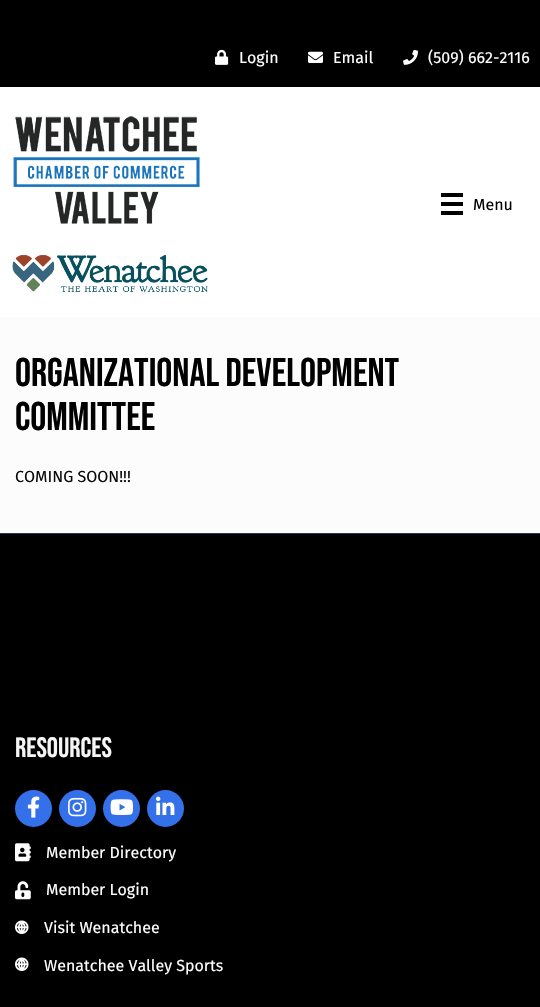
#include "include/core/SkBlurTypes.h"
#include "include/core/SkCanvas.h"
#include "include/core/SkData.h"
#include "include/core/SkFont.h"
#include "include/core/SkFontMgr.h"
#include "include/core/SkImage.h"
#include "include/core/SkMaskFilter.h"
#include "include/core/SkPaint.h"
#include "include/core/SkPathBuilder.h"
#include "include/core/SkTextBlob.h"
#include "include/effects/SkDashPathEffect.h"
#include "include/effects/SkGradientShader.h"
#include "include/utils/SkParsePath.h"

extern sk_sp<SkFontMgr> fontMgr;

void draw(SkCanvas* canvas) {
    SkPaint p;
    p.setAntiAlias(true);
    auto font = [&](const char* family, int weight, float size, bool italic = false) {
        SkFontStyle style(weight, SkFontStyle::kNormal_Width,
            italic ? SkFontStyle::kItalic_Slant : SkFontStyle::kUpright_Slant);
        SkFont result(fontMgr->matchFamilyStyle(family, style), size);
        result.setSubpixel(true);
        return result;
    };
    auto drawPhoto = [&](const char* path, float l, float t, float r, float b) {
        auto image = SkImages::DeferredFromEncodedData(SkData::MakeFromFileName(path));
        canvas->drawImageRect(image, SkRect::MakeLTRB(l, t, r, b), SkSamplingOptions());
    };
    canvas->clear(0xFFFFFFFF);
    p.setColor(0xFF000000);
    canvas->drawRect(SkRect::MakeLTRB(0, 0, 540, 87), p);
    drawPhoto("media/1.png", 215, 49, 229, 65);
    auto font1 = font("Fira Sans", 400, 16);
    p.setColor(0xFFFFFFFF);
    canvas->drawString("Login", 239, 63, font1, p);
    drawPhoto("media/2.png", 308, 51, 323, 63);
    canvas->drawString("Email", 333, 63, font1, p);
    drawPhoto("media/3.png", 403, 49, 418, 65);
    canvas->drawString("(509) 662-2116", 428, 63, font1, p);
    drawPhoto("media/4.png", 13, 116, 200, 224);
    drawPhoto("media/5.png", 12, 255, 208, 293);
    {
        const struct { float l, t, r, b; SkColor color; } items[] = {
            {441, 193, 463, 197, 0xFF000000},
            {441, 202, 463, 206, 0xFF000000},
            {441, 211, 463, 215, 0xFF000000},
        };
        for (auto [l, t, r, b, color] : items) {
            p.setColor(color);
            canvas->drawRect(SkRect::MakeLTRB(l, t, r, b), p);
        }
    }
    canvas->drawString("Menu", 473, 210, font1, p);
    p.setColor(0xFFFCFCFC);
    canvas->drawRect(SkRect::MakeLTRB(0, 317, 540, 533), p);
    auto font2 = font("Bebas Neue", 400, 40);
    p.setColor(0xFF000000);
    canvas->drawString("Organizational Development", 15, 386, font2, p);
    canvas->drawString("Committee", 15, 430, font2, p);
    p.setColor(0xFF0A0A0A);
    canvas->drawString("COMING SOON!!!", 15, 482, font1, p);
    p.setColor(0xFF000000);
    canvas->drawRect(SkRect::MakeLTRB(0, 534, 540, 1007), p);
    p.setColor(0xFF2C3A56);
    canvas->drawRect(SkRect::MakeLTRB(0, 533, 540, 534), p);
    auto font3 = font("Bebas Neue", 400, 28);
    p.setColor(0xFFF5F5F5);
    canvas->drawString("Resources", 15, 757, font3, p);
    p.setColor(0xFF3370E9);
    canvas->drawCircle(33.5f, 808.5f, 18.5f, p);
    drawPhoto("media/6.png", 27, 796, 40, 818);
    canvas->drawCircle(77.5f, 808.5f, 18.5f, p);
    drawPhoto("media/7.png", 68, 797, 87, 817);
    canvas->drawCircle(121.5f, 808.5f, 18.5f, p);
    drawPhoto("media/8.png", 110, 799, 133, 815);
    canvas->drawCircle(165.5f, 808.5f, 18.5f, p);
    drawPhoto("media/9.png", 156, 796, 175, 815);
    drawPhoto("media/10.png", 15, 843, 31, 862);
    p.setColor(0xFFFFFFFF);
    canvas->drawString("Member Directory", 46, 858, font1, p);
    drawPhoto("media/11.png", 15, 881, 31, 900);
    canvas->drawString("Member Login", 46, 895, font1, p);
    drawPhoto("media/12.png", 15, 920, 29, 934);
    canvas->drawString("Visit Wenatchee", 44, 933, font1, p);
    drawPhoto("media/12.png", 15, 957, 29, 971);
    canvas->drawString("Wenatchee Valley Sports", 44, 971, font1, p);
}
